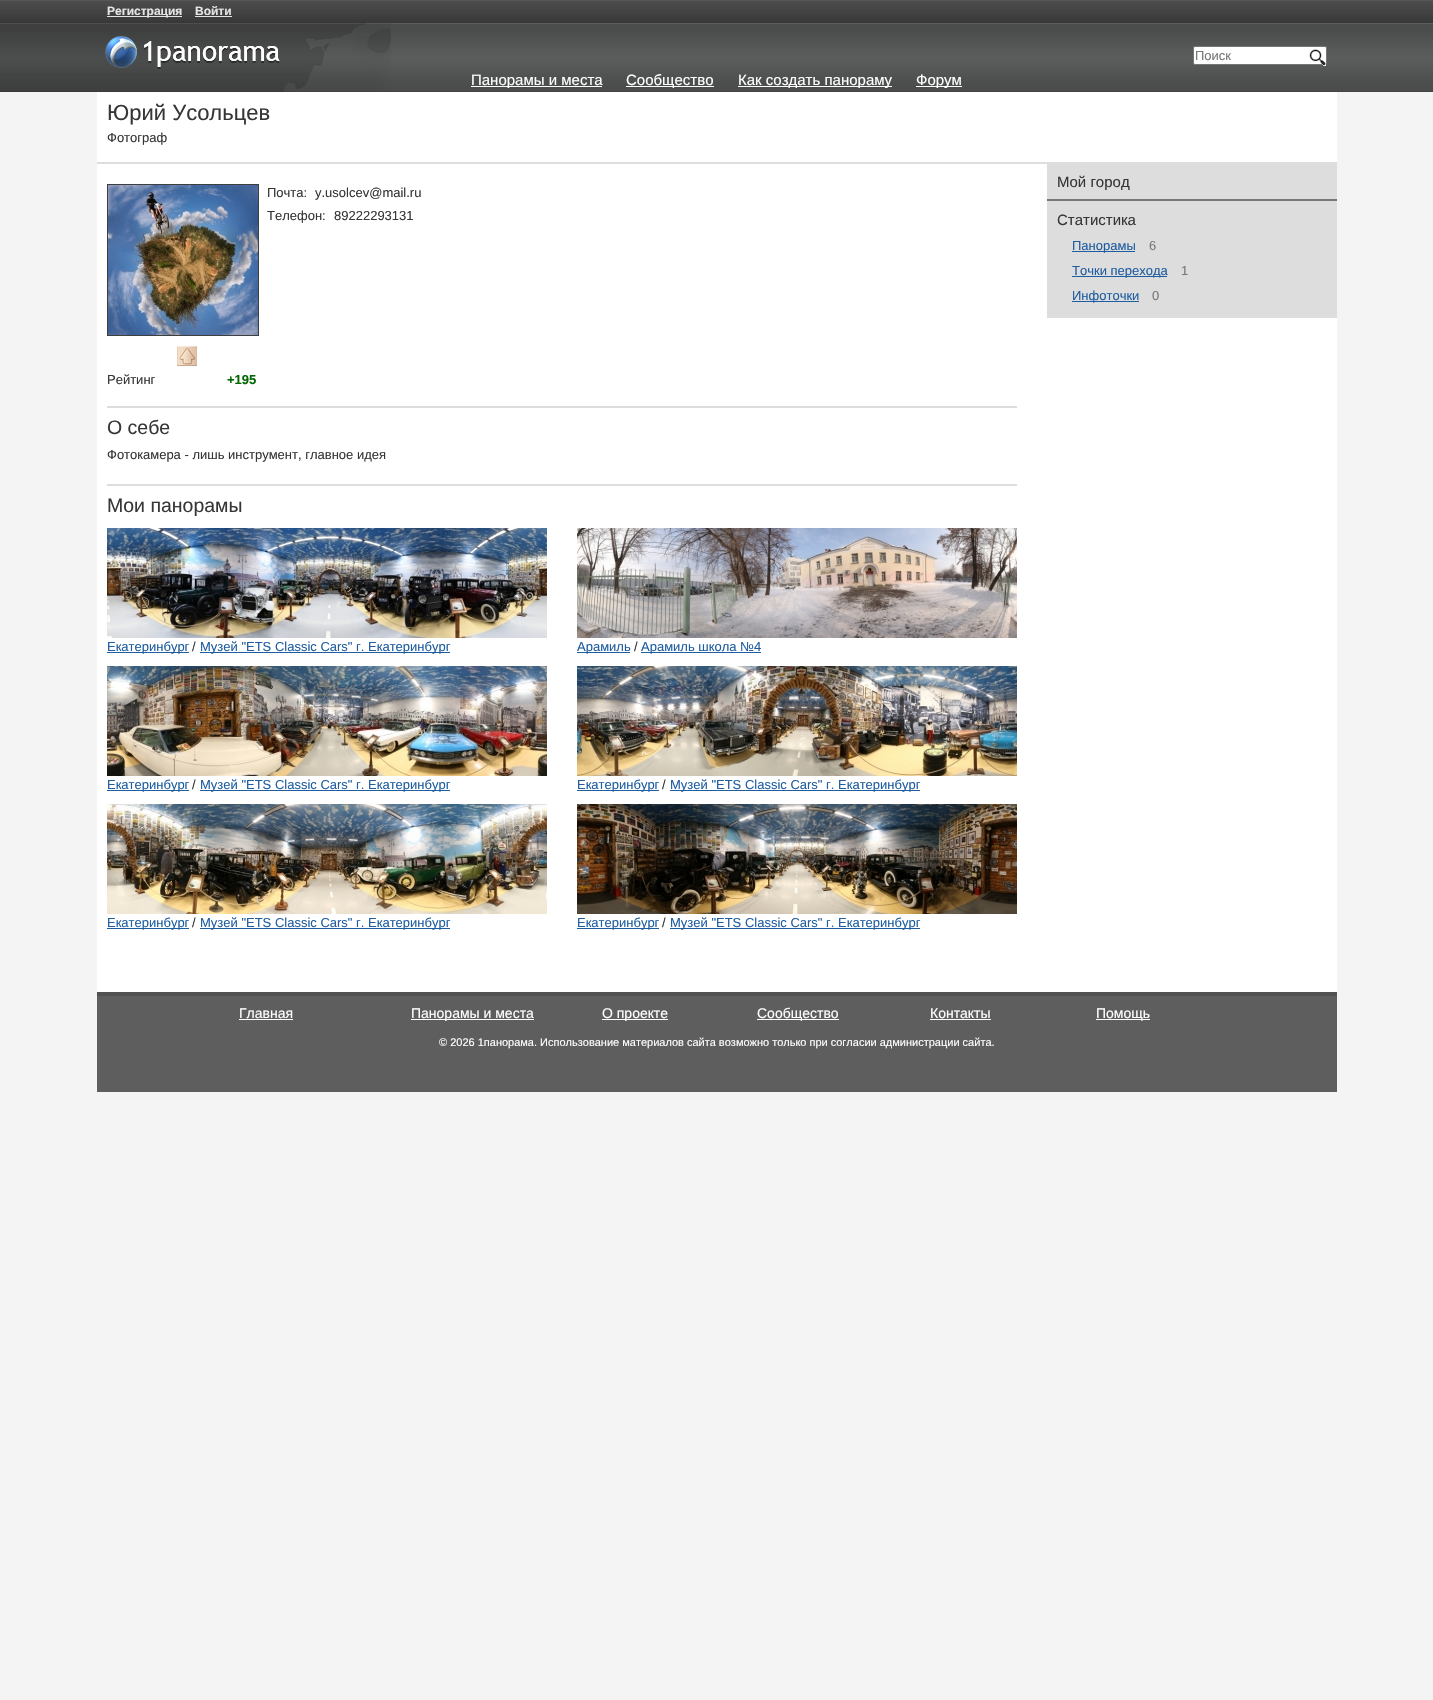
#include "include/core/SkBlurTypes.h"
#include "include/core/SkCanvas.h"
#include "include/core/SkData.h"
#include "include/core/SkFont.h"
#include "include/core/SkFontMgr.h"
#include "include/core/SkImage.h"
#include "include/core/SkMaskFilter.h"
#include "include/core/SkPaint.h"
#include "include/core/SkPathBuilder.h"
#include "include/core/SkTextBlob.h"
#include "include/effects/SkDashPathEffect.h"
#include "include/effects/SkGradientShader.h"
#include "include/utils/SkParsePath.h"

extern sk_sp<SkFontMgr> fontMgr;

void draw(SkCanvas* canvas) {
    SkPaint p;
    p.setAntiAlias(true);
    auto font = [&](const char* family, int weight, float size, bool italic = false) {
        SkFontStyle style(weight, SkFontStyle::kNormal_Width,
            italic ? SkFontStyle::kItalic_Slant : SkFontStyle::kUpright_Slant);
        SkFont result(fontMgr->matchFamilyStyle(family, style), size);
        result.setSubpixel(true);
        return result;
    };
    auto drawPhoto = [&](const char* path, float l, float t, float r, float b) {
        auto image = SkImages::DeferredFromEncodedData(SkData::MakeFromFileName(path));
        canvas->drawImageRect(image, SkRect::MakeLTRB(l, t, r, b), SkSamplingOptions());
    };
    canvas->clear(0xFFF4F4F4);
    drawPhoto("media/1.png", 0, 0, 1433, 92);
    drawPhoto("media/2.png", 391, 23, 717, 92);
    p.setColor(0xFFE4E4E4);
    canvas->drawRect(SkRect::MakeLTRB(107, 16, 182, 17), p);
    auto font1 = font("Liberation Sans", 700, 12);
    canvas->drawString("Регистрация", 107, 15, font1, p);
    canvas->drawString("Войти", 195, 15, font1, p);
    canvas->drawRect(SkRect::MakeLTRB(195, 16, 232, 17), p);
    drawPhoto("media/3.png", 97, 23, 391, 92);
    drawPhoto("media/4.png", 105, 36, 280, 69);
    p.setColor(0xFFFFFFFF);
    canvas->drawRoundRect(SkRect::MakeLTRB(1193.5f, 46.5f, 1326.5f, 64.5f), 1.5f, 1.5f, p);
    p.setStyle(SkPaint::kStroke_Style);
    p.setStrokeWidth(1);
    p.setColor(0xFF767676);
    canvas->drawRoundRect(SkRect::MakeLTRB(1193.5f, 46.5f, 1326.5f, 64.5f), 1.5f, 1.5f, p);
    auto font2 = font("Liberation Sans", 400, 13);
    p.setStyle(SkPaint::kFill_Style);
    p.setColor(0xFF777777);
    canvas->drawString("Поиск", 1195, 60, font2, p);
    drawPhoto("media/5.png", 1309, 49, 1326, 66);
    p.setColor(0xFFFFFFFF);
    canvas->drawRect(SkRect::MakeLTRB(471, 86, 602, 87), p);
    auto font3 = font("Liberation Sans", 400, 15);
    canvas->drawString("Панорамы и места", 471, 85, font3, p);
    canvas->drawRect(SkRect::MakeLTRB(626, 86, 714, 87), p);
    canvas->drawString("Сообщество", 626, 85, font3, p);
    canvas->drawRect(SkRect::MakeLTRB(738, 86, 892, 87), p);
    canvas->drawString("Как создать панораму", 738, 85, font3, p);
    canvas->drawRect(SkRect::MakeLTRB(916, 86, 962, 87), p);
    canvas->drawString("Форум", 916, 85, font3, p);
    canvas->drawRect(SkRect::MakeLTRB(97, 92, 1337, 992), p);
    auto font4 = font("Liberation Sans", 400, 22);
    p.setColor(0xFF363636);
    canvas->drawString("Юрий Усольцев", 107, 120, font4, p);
    canvas->drawString("Фотограф", 107, 142, font2, p);
    p.setColor(0xFFDDDDDD);
    canvas->drawRect(SkRect::MakeLTRB(97, 162, 1337, 164), p);
    p.setColor(0xFF363636);
    {
        const struct { const char* s; float x, y; } items[] = {
            {"Почта:", 267, 197},
            {"y.usolcev@mail.ru", 315, 197},
            {"Телефон:", 267, 220},
            {"89222293131", 334, 220},
        };
        for (auto [s, x, y] : items) {
            canvas->drawString(s, x, y, font2, p);
        }
    }
    p.setStyle(SkPaint::kStroke_Style);
    p.setColor(0xFF3E3E3E);
    canvas->drawRect(SkRect::MakeLTRB(107.5f, 184.5f, 258.5f, 335.5f), p);
    drawPhoto("media/6.png", 108, 185, 258, 335);
    drawPhoto("media/7.png", 177, 346, 197, 366);
    p.setStyle(SkPaint::kFill_Style);
    p.setColor(0xFF363636);
    canvas->drawString("Рейтинг", 107, 384, font2, p);
    auto font5 = font("Liberation Sans", 700, 13);
    p.setColor(0xFF006600);
    canvas->drawString("+195", 227, 384, font5, p);
    p.setColor(0xFFDDDDDD);
    canvas->drawRect(SkRect::MakeLTRB(107, 406, 1017, 408), p);
    auto font6 = font("Liberation Sans", 400, 19.5f);
    p.setColor(0xFF363636);
    canvas->drawString("О себе", 107, 434, font6, p);
    canvas->drawString("Фотокамера - лишь инструмент, главное идея", 107, 459, font2, p);
    p.setColor(0xFFDDDDDD);
    canvas->drawRect(SkRect::MakeLTRB(107, 484, 1017, 486), p);
    p.setColor(0xFF363636);
    canvas->drawString("Мои панорамы", 107, 512, font6, p);
    drawPhoto("media/8.png", 107, 528, 547, 638);
    p.setColor(0xFF1E5DA0);
    canvas->drawRect(SkRect::MakeLTRB(107, 652, 189, 653), p);
    canvas->drawString("Екатеринбург", 107, 651, font2, p);
    p.setColor(0xFF363636);
    canvas->drawString("/", 192, 651, font2, p);
    p.setColor(0xFF1E5DA0);
    canvas->drawRect(SkRect::MakeLTRB(200, 652, 450, 653), p);
    canvas->drawString("Музей \"ETS Classic Cars\" г. Екатеринбург", 200, 651, font2, p);
    drawPhoto("media/9.png", 577, 528, 1017, 638);
    canvas->drawRect(SkRect::MakeLTRB(577, 652, 630, 653), p);
    canvas->drawString("Арамиль", 577, 651, font2, p);
    p.setColor(0xFF363636);
    canvas->drawString("/", 634, 651, font2, p);
    p.setColor(0xFF1E5DA0);
    canvas->drawRect(SkRect::MakeLTRB(641, 652, 761, 653), p);
    canvas->drawString("Арамиль школа №4", 641, 651, font2, p);
    drawPhoto("media/10.png", 107, 666, 547, 776);
    canvas->drawRect(SkRect::MakeLTRB(107, 790, 189, 791), p);
    canvas->drawString("Екатеринбург", 107, 789, font2, p);
    p.setColor(0xFF363636);
    canvas->drawString("/", 192, 789, font2, p);
    p.setColor(0xFF1E5DA0);
    canvas->drawRect(SkRect::MakeLTRB(200, 790, 450, 791), p);
    canvas->drawString("Музей \"ETS Classic Cars\" г. Екатеринбург", 200, 789, font2, p);
    drawPhoto("media/11.png", 577, 666, 1017, 776);
    canvas->drawRect(SkRect::MakeLTRB(577, 790, 659, 791), p);
    canvas->drawString("Екатеринбург", 577, 789, font2, p);
    p.setColor(0xFF363636);
    canvas->drawString("/", 662, 789, font2, p);
    p.setColor(0xFF1E5DA0);
    canvas->drawRect(SkRect::MakeLTRB(670, 790, 920, 791), p);
    canvas->drawString("Музей \"ETS Classic Cars\" г. Екатеринбург", 670, 789, font2, p);
    drawPhoto("media/12.png", 107, 804, 547, 914);
    canvas->drawRect(SkRect::MakeLTRB(107, 928, 189, 929), p);
    canvas->drawString("Екатеринбург", 107, 927, font2, p);
    p.setColor(0xFF363636);
    canvas->drawString("/", 192, 927, font2, p);
    p.setColor(0xFF1E5DA0);
    canvas->drawRect(SkRect::MakeLTRB(200, 928, 450, 929), p);
    canvas->drawString("Музей \"ETS Classic Cars\" г. Екатеринбург", 200, 927, font2, p);
    drawPhoto("media/13.png", 577, 804, 1017, 914);
    canvas->drawRect(SkRect::MakeLTRB(577, 928, 659, 929), p);
    canvas->drawString("Екатеринбург", 577, 927, font2, p);
    p.setColor(0xFF363636);
    canvas->drawString("/", 662, 927, font2, p);
    p.setColor(0xFF1E5DA0);
    canvas->drawRect(SkRect::MakeLTRB(670, 928, 920, 929), p);
    canvas->drawString("Музей \"ETS Classic Cars\" г. Екатеринбург", 670, 927, font2, p);
    p.setColor(0xFFDDDDDD);
    canvas->drawRect(SkRect::MakeLTRB(1047, 164, 1337, 318), p);
    p.setColor(0xFF363636);
    canvas->drawString("Мой город", 1057, 187, font3, p);
    p.setColor(0xFF777777);
    canvas->drawRect(SkRect::MakeLTRB(1047, 199, 1337, 201), p);
    p.setColor(0xFF363636);
    canvas->drawString("Статистика", 1057, 225, font3, p);
    p.setColor(0xFF1E5DA0);
    canvas->drawRect(SkRect::MakeLTRB(1072, 251, 1135, 252), p);
    canvas->drawString("Панорамы", 1072, 250, font2, p);
    p.setColor(0xFF777777);
    canvas->drawString("6", 1149, 250, font2, p);
    p.setColor(0xFF1E5DA0);
    canvas->drawRect(SkRect::MakeLTRB(1072, 276, 1167, 277), p);
    canvas->drawString("Точки перехода", 1072, 275, font2, p);
    p.setColor(0xFF777777);
    canvas->drawString("1", 1181, 275, font2, p);
    p.setColor(0xFF1E5DA0);
    canvas->drawRect(SkRect::MakeLTRB(1072, 301, 1139, 302), p);
    canvas->drawString("Инфоточки", 1072, 300, font2, p);
    p.setColor(0xFF777777);
    canvas->drawString("0", 1152, 300, font2, p);
    p.setColor(0xFF5E5E5E);
    canvas->drawRect(SkRect::MakeLTRB(97, 996, 1337, 1092), p);
    p.setColor(0xFF515151);
    canvas->drawRect(SkRect::MakeLTRB(97, 992, 1337, 996), p);
    auto font7 = font("Liberation Sans", 400, 14);
    p.setColor(0xFFFFFFFF);
    canvas->drawString("Главная", 239, 1018, font7, p);
    canvas->drawRect(SkRect::MakeLTRB(239, 1019, 293, 1020), p);
    canvas->drawRect(SkRect::MakeLTRB(411, 1019, 534, 1020), p);
    canvas->drawString("Панорамы и места", 411, 1018, font7, p);
    canvas->drawRect(SkRect::MakeLTRB(602, 1019, 668, 1020), p);
    canvas->drawString("О проекте", 602, 1018, font7, p);
    canvas->drawRect(SkRect::MakeLTRB(757, 1019, 839, 1020), p);
    canvas->drawString("Сообщество", 757, 1018, font7, p);
    canvas->drawString("Контакты", 930, 1018, font7, p);
    canvas->drawRect(SkRect::MakeLTRB(930, 1019, 991, 1020), p);
    canvas->drawRect(SkRect::MakeLTRB(1096, 1019, 1150, 1020), p);
    canvas->drawString("Помощь", 1096, 1018, font7, p);
    auto font8 = font("Liberation Sans", 400, 11);
    canvas->drawString("© 2026 1панорама. Использование материалов сайта возможно только при согласии администрации сайта.", 439, 1046, font8, p);
}
